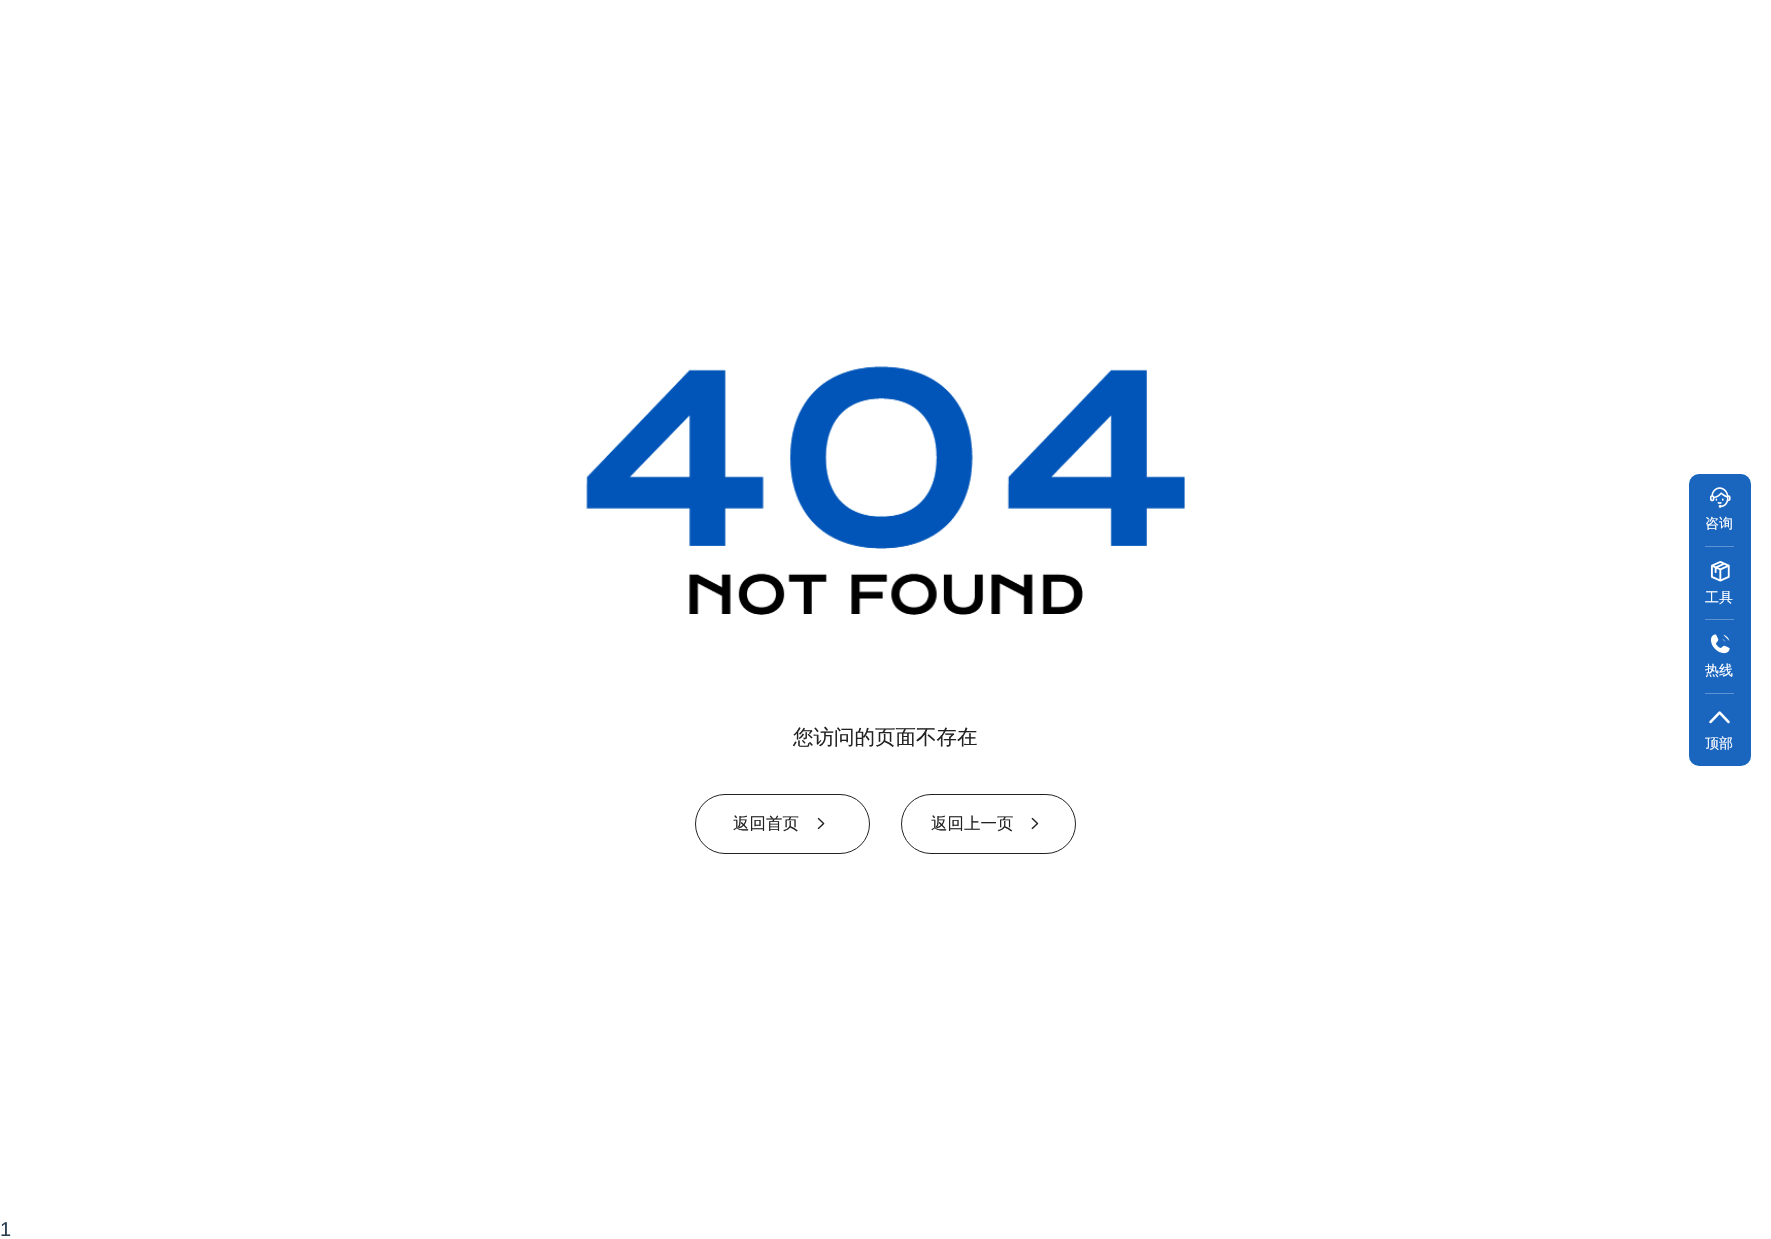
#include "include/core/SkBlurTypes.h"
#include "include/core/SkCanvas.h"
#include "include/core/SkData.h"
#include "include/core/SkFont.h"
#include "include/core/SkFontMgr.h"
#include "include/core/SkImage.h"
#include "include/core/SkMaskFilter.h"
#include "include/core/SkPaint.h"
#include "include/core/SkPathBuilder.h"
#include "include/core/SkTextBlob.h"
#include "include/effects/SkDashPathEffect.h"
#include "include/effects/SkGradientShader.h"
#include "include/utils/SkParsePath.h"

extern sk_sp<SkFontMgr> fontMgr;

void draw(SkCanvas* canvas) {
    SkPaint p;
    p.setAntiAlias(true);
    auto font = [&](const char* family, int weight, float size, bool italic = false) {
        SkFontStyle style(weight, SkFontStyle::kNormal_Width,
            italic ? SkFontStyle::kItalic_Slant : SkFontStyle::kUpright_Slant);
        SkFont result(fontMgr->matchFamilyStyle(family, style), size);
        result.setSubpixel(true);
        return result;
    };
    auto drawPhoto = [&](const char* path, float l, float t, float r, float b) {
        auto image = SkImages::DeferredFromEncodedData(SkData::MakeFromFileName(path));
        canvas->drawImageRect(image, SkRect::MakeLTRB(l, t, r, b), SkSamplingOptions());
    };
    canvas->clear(0xFFFFFFFF);
    p.setColor(0xFF1A66BF);
    canvas->drawRoundRect(SkRect::MakeLTRB(1689, 474, 1751, 766), 10, 10, p);
    p.setColor(0xFF5F94D2);
    canvas->drawRect(SkRect::MakeLTRB(1705, 546, 1734, 547), p);
    drawPhoto("media/1.png", 1710, 487, 1731, 508);
    auto font1 = font("WenQuanYi Zen Hei", 500, 14);
    p.setColor(0xFFFFFFFF);
    canvas->drawString("咨询", 1705, 528, font1, p);
    p.setColor(0xFF5F94D2);
    canvas->drawRect(SkRect::MakeLTRB(1705, 619, 1734, 620), p);
    drawPhoto("media/2.png", 1710, 561, 1730, 582);
    p.setColor(0xFFFFFFFF);
    canvas->drawString("工具", 1705, 602, font1, p);
    p.setColor(0xFF5F94D2);
    canvas->drawRect(SkRect::MakeLTRB(1705, 693, 1734, 694), p);
    drawPhoto("media/3.png", 1710, 634, 1730, 654);
    p.setColor(0xFFFFFFFF);
    canvas->drawString("热线", 1705, 675, font1, p);
    drawPhoto("media/4.png", 1709, 711, 1730, 724);
    canvas->drawString("顶部", 1705, 748, font1, p);
    drawPhoto("media/5.png", 586, 366, 1185, 615);
    auto font2 = font("WenQuanYi Zen Hei", 500, 20.5f);
    p.setColor(0xFF222222);
    canvas->drawString("您访问的页面不存在", 793, 744, font2, p);
    p.setStyle(SkPaint::kStroke_Style);
    p.setStrokeWidth(1);
    canvas->drawRoundRect(SkRect::MakeLTRB(695.5f, 794.5f, 869.5f, 853.5f), 29.5f, 29.5f, p);
    auto font3 = font("WenQuanYi Zen Hei", 500, 16.5f);
    p.setStyle(SkPaint::kFill_Style);
    canvas->drawString("返回首页", 733, 829, font3, p);
    drawPhoto("media/6.png", 817, 817, 825, 830);
    p.setStyle(SkPaint::kStroke_Style);
    canvas->drawRoundRect(SkRect::MakeLTRB(901.5f, 794.5f, 1075.5f, 853.5f), 29.5f, 29.5f, p);
    p.setStyle(SkPaint::kFill_Style);
    canvas->drawString("返回上一页", 931, 829, font3, p);
    drawPhoto("media/7.png", 1031, 817, 1039, 830);
    auto font4 = font("Liberation Sans", 400, 20);
    p.setColor(0xFF2C3E50);
    canvas->drawString("1", 0, 1236, font4, p);
}
